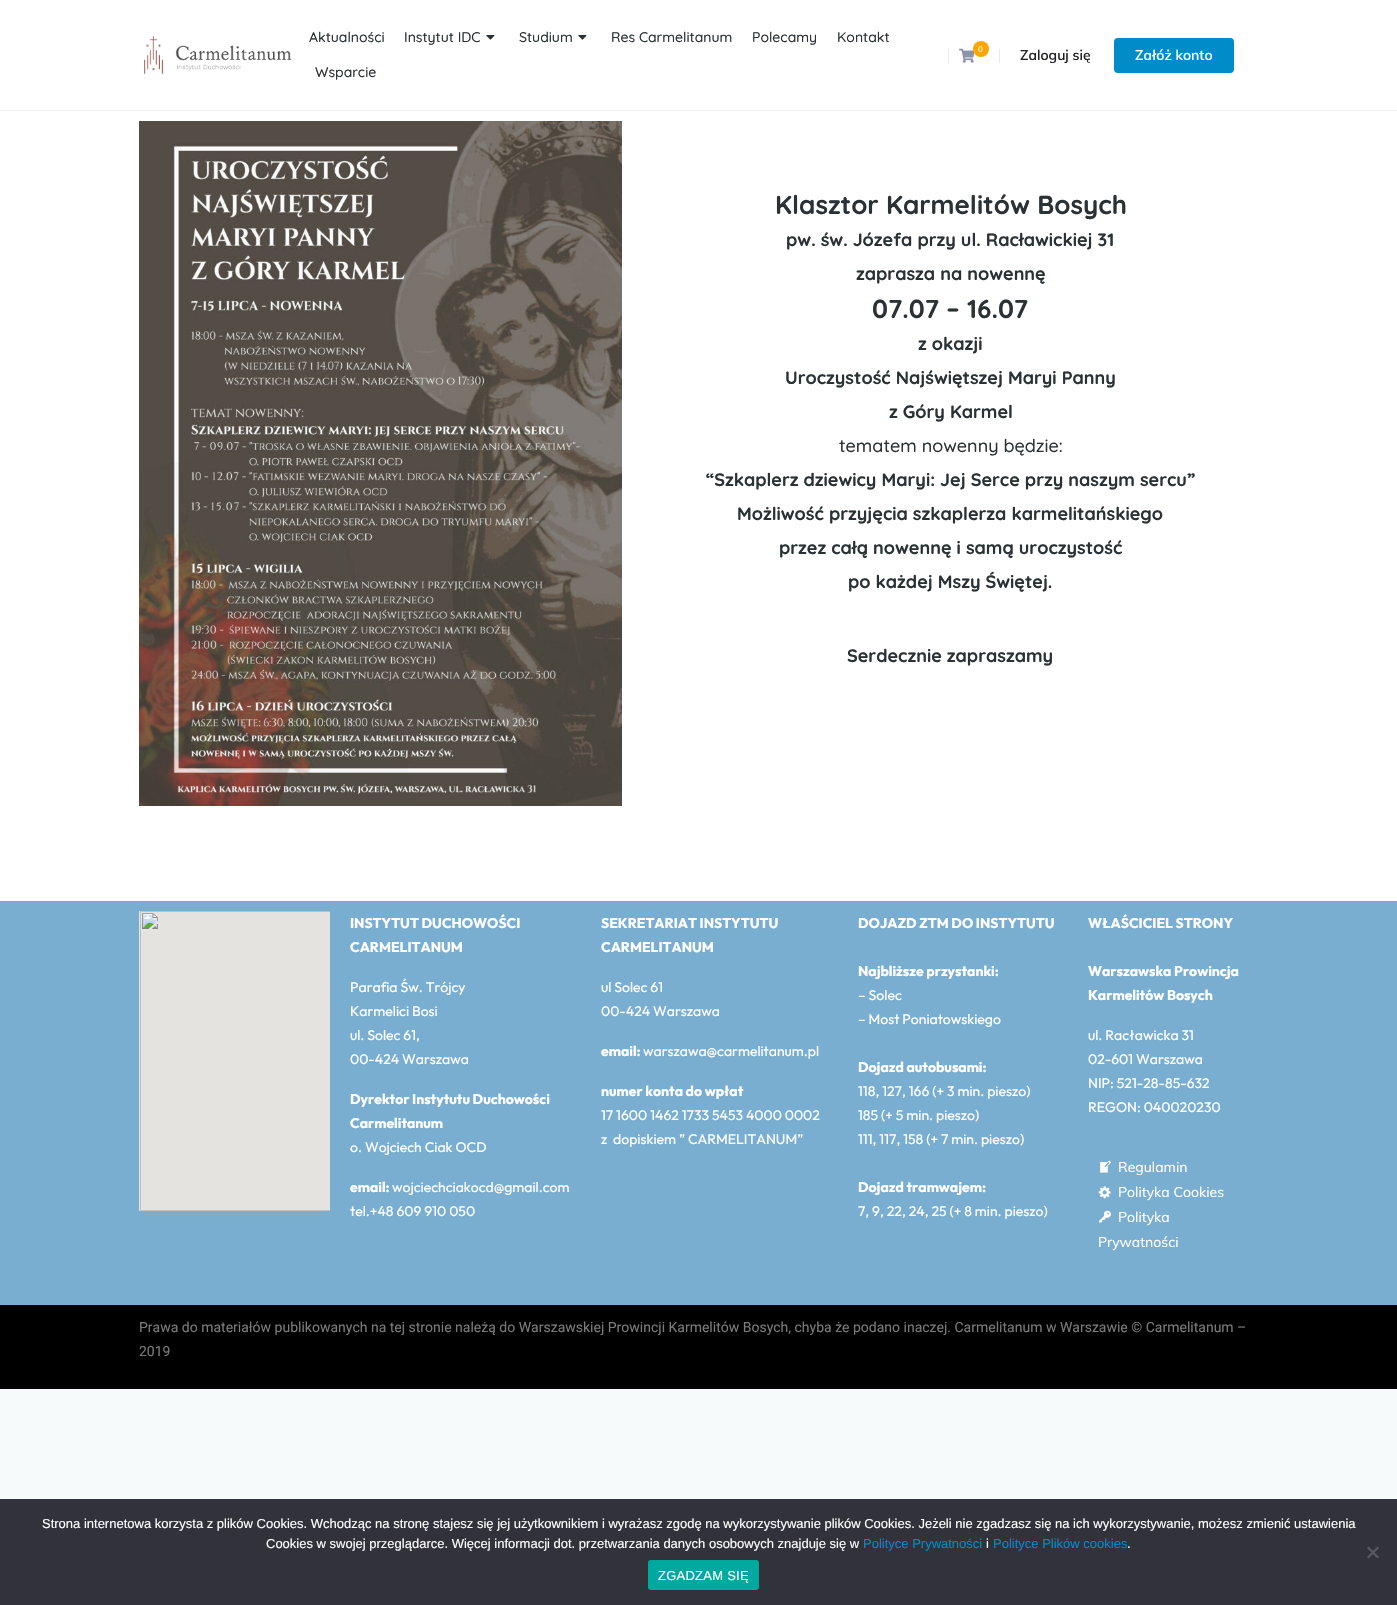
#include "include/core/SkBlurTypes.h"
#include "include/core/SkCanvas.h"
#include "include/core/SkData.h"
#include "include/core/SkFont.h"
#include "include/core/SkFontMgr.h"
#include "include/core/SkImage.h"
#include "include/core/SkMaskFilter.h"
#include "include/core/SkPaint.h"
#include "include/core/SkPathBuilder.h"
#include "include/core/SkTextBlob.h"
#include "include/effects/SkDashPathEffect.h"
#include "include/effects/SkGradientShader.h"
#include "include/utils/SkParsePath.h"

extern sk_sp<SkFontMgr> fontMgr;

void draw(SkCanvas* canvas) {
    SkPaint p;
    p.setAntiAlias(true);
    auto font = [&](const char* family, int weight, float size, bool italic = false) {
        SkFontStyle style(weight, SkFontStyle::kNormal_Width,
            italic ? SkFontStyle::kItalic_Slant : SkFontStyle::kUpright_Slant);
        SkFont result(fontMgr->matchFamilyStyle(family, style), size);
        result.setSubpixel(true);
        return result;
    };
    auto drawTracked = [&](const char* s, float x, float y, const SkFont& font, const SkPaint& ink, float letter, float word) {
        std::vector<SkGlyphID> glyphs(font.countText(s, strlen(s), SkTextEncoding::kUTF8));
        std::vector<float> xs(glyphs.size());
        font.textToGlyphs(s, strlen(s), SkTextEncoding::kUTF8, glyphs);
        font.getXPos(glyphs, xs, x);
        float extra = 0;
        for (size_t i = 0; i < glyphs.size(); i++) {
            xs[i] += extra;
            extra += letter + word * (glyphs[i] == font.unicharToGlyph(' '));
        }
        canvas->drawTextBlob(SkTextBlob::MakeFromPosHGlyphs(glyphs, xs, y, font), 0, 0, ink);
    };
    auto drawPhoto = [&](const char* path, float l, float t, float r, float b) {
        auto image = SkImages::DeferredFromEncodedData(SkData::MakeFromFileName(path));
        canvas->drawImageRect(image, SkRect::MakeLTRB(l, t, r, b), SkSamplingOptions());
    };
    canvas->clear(0xFFF6FAFB);
    p.setColor(0xFFFFFFFF);
    canvas->drawRect(SkRect::MakeLTRB(0, 0, 1397, 901), p);
    p.setColor(0xFFEEEEEE);
    canvas->drawRect(SkRect::MakeLTRB(0, 110, 1397, 111), p);
    drawPhoto("media/1.png", 144, 36, 292, 74);
    auto font1 = font("Quicksand", 500, 14);
    p.setColor(0xFF2A3235);
    canvas->drawString("Aktualności", 309, 42, font1, p);
    canvas->drawString("Instytut IDC", 404, 42, font1, p);
    drawPhoto("media/2.png", 486, 35, 495, 40);
    canvas->drawString("Studium", 519, 42, font1, p);
    drawPhoto("media/2.png", 578, 35, 587, 40);
    {
        const struct { const char* s; float x, y; } items[] = {
            {"Res Carmelitanum", 611, 42},
            {"Polecamy", 752, 42},
            {"Kontakt", 837, 42},
            {"Wsparcie", 315, 77},
        };
        for (auto [s, x, y] : items) {
            canvas->drawString(s, x, y, font1, p);
        }
    }
    p.setColor(0xFFE6EAEB);
    canvas->drawRect(SkRect::MakeLTRB(999, 49, 1000, 63), p);
    canvas->drawRect(SkRect::MakeLTRB(948, 49, 949, 63), p);
    drawPhoto("media/3.png", 959, 48, 975, 63);
    p.setColor(0xFFFFA500);
    canvas->drawCircle(981, 49, 8, p);
    auto font2 = font("Muli", 400, 8);
    p.setColor(0xFFFFFFFF);
    canvas->drawString("0", 978, 52, font2, p);
    auto font3 = font("Muli", 600, 14);
    p.setColor(0xFF212127);
    canvas->drawString("Zaloguj się", 1020, 60, font3, p);
    p.setColor(0xFF008CC9);
    canvas->drawRoundRect(SkRect::MakeLTRB(1114, 38, 1234, 73), 4, 4, p);
    p.setColor(0xFFFFFFFF);
    canvas->drawString("Załóż konto", 1135, 60, font3, p);
    drawPhoto("media/4.png", 139, 121, 622, 806);
    auto font4 = font("Quicksand", 700, 26);
    p.setColor(0xFF2A3235);
    canvas->drawString("Klasztor Karmelitów Bosych", 775, 214, font4, p);
    auto font5 = font("Quicksand", 700, 18);
    canvas->drawString("pw. św. Józefa przy ul. Racławickiej 31", 786, 246, font5, p);
    canvas->drawString("zaprasza na nowennę", 856, 280, font5, p);
    canvas->drawString("07.07 – 16.07", 872, 318, font4, p);
    {
        const struct { const char* s; float x, y; } items[] = {
            {"z okazji", 918, 350},
            {"Uroczystość Najświętszej Maryi Panny", 785, 384},
            {"z Góry Karmel", 889, 418},
        };
        for (auto [s, x, y] : items) {
            canvas->drawString(s, x, y, font5, p);
        }
    }
    auto font6 = font("Quicksand", 500, 18);
    canvas->drawString("tematem nowenny będzie:", 839, 452, font6, p);
    {
        const struct { const char* s; float x, y; } items[] = {
            {"“Szkaplerz dziewicy Maryi: Jej Serce przy naszym sercu”", 706, 486},
            {"Możliwość przyjęcia szkaplerza karmelitańskiego", 737, 520},
            {"przez całą nowennę i samą uroczystość", 779, 554},
            {"po każdej Mszy Świętej.", 848, 588},
            {"Serdecznie zapraszamy", 847, 662},
        };
        for (auto [s, x, y] : items) {
            canvas->drawString(s, x, y, font5, p);
        }
    }
    p.setColor(0xFF7AAED1);
    canvas->drawRect(SkRect::MakeLTRB(0, 901, 1397, 1305), p);
    drawPhoto("media/5.png", 139, 911, 330, 1211);
    auto font7 = font("Outfit", 700, 14);
    p.setColor(0xFFFFFFFF);
    canvas->drawString("INSTYTUT DUCHOWOŚCI", 350, 928, font7, p);
    canvas->drawString("CARMELITANUM", 350, 952, font7, p);
    auto font8 = font("Outfit", 400, 14);
    {
        const struct { const char* s; float x, y; } items[] = {
            {"Parafia Św. Trójcy", 350, 992},
            {"Karmelici Bosi", 350, 1016},
            {"ul. Solec 61,", 350, 1040},
            {"00-424 Warszawa", 350, 1064},
        };
        for (auto [s, x, y] : items) {
            canvas->drawString(s, x, y, font8, p);
        }
    }
    canvas->drawString("Dyrektor Instytutu Duchowości", 350, 1104, font7, p);
    canvas->drawString("Carmelitanum", 350, 1128, font7, p);
    canvas->drawString("o. Wojciech Ciak OCD", 350, 1152, font8, p);
    canvas->drawString("email:", 350, 1192, font7, p);
    canvas->drawString("wojciechciakocd@gmail.com", 392, 1192, font8, p);
    canvas->drawString("tel.+48 609 910 050", 350, 1216, font8, p);
    canvas->drawString("SEKRETARIAT INSTYTUTU", 601, 928, font7, p);
    canvas->drawString("CARMELITANUM", 601, 952, font7, p);
    canvas->drawString("ul Solec 61", 601, 992, font8, p);
    canvas->drawString("00-424 Warszawa", 601, 1016, font8, p);
    canvas->drawString("email:", 601, 1056, font7, p);
    canvas->drawString("warszawa@carmelitanum.pl", 643, 1056, font8, p);
    canvas->drawString("numer konta do wpłat", 601, 1096, font7, p);
    canvas->drawString("17 1600 1462 1733 5453 4000 0002", 601, 1120, font8, p);
    canvas->drawString("z  dopiskiem ” CARMELITANUM”", 601, 1144, font8, p);
    canvas->drawString("DOJAZD ZTM DO INSTYTUTU", 858, 928, font7, p);
    canvas->drawString("Najbliższe przystanki:", 858, 976, font7, p);
    canvas->drawString("– Solec", 858, 1000, font8, p);
    canvas->drawString("– Most Poniatowskiego", 858, 1024, font8, p);
    canvas->drawString("Dojazd autobusami:", 858, 1072, font7, p);
    {
        const struct { const char* s; float x, y; } items[] = {
            {"118, 127, 166 (+ 3 min. pieszo)", 858, 1096},
            {"185 (+ 5 min. pieszo)", 858, 1120},
            {"111, 117, 158 (+ 7 min. pieszo)", 858, 1144},
        };
        for (auto [s, x, y] : items) {
            canvas->drawString(s, x, y, font8, p);
        }
    }
    canvas->drawString("Dojazd tramwajem:", 858, 1192, font7, p);
    canvas->drawString("7, 9, 22, 24, 25 (+ 8 min. pieszo)", 858, 1216, font8, p);
    {
        const struct { const char* s; float x, y; } items[] = {
            {"WŁAŚCICIEL STRONY", 1088, 928},
            {"Warszawska Prowincja", 1088, 976},
            {"Karmelitów Bosych", 1088, 1000},
        };
        for (auto [s, x, y] : items) {
            canvas->drawString(s, x, y, font7, p);
        }
    }
    {
        const struct { const char* s; float x, y; } items[] = {
            {"ul. Racławicka 31", 1088, 1040},
            {"02-601 Warszawa", 1088, 1064},
            {"NIP: 521-28-85-632", 1088, 1088},
            {"REGON: 040020230", 1088, 1112},
        };
        for (auto [s, x, y] : items) {
            canvas->drawString(s, x, y, font8, p);
        }
    }
    drawPhoto("media/6.png", 1100, 1160, 1111, 1173);
    auto font9 = font("Muli", 400, 14);
    canvas->drawString("Regulamin", 1118, 1172, font9, p);
    drawPhoto("media/7.png", 1098, 1186, 1111, 1199);
    canvas->drawString("Polityka Cookies", 1118, 1197, font9, p);
    drawPhoto("media/8.png", 1098, 1210, 1111, 1223);
    canvas->drawString("Polityka", 1118, 1222, font9, p);
    canvas->drawString("Prywatności", 1098, 1247, font9, p);
    p.setColor(0xFF000000);
    canvas->drawRect(SkRect::MakeLTRB(0, 1305, 1397, 1389), p);
    auto font10 = font("Roboto", 400, 14);
    p.setColor(0xFF7A7A7A);
    canvas->drawString("Prawa do materiałów publikowanych na tej stronie należą do Warszawskiej Prowincji Karmelitów Bosych, chyba że podano inaczej. Carmelitanum w Warszawie © Carmelitanum –", 139, 1332, font10, p);
    canvas->drawString("2019", 139, 1356, font10, p);
    p.setColor(0xFF32323A);
    canvas->drawRect(SkRect::MakeLTRB(0, 1499, 1397, 1605), p);
    auto font11 = font("Liberation Sans", 400, 13);
    p.setColor(0xFFFFFFFF);
    canvas->drawString("Strona internetowa korzysta z plików Cookies. Wchodząc na stronę stajesz się jej użytkownikiem i wyrażasz zgodę na wykorzystywanie plików Cookies. Jeżeli nie zgadzasz się na ich wykorzystywanie, możesz zmienić ustawienia", 42, 1528, font11, p);
    canvas->drawString("Cookies w swojej przeglądarce. Więcej informacji dot. przetwarzania danych osobowych znajduje się w", 266, 1548, font11, p);
    p.setColor(0xFF008CC9);
    canvas->drawString("Polityce Prywatności", 863, 1548, font11, p);
    p.setColor(0xFFFFFFFF);
    canvas->drawString("i", 986, 1548, font11, p);
    p.setColor(0xFF008CC9);
    canvas->drawString("Polityce Plików cookies", 993, 1548, font11, p);
    p.setColor(0xFFFFFFFF);
    canvas->drawString(".", 1127, 1548, font11, p);
    p.setColor(0xFF59595D);
    canvas->drawPath(SkPathBuilder().moveTo(1377.5f, 1546.5f).lineTo(1379, 1548).lineTo(1368.5f, 1558.5f).lineTo(1367, 1557).close().detach(), p);
    canvas->drawPath(SkPathBuilder().moveTo(1367, 1548).lineTo(1368.5f, 1546.5f).lineTo(1379, 1557).lineTo(1377.5f, 1558.5f).close().detach(), p);
    p.setColor(0xFF00A99D);
    canvas->drawRoundRect(SkRect::MakeLTRB(648, 1560, 759, 1590), 3, 3, p);
    p.setColor(0xFFFFFFFF);
    drawTracked("ZGADZAM SIĘ", 658, 1580, font11, p, 0.25f, 0);
}
